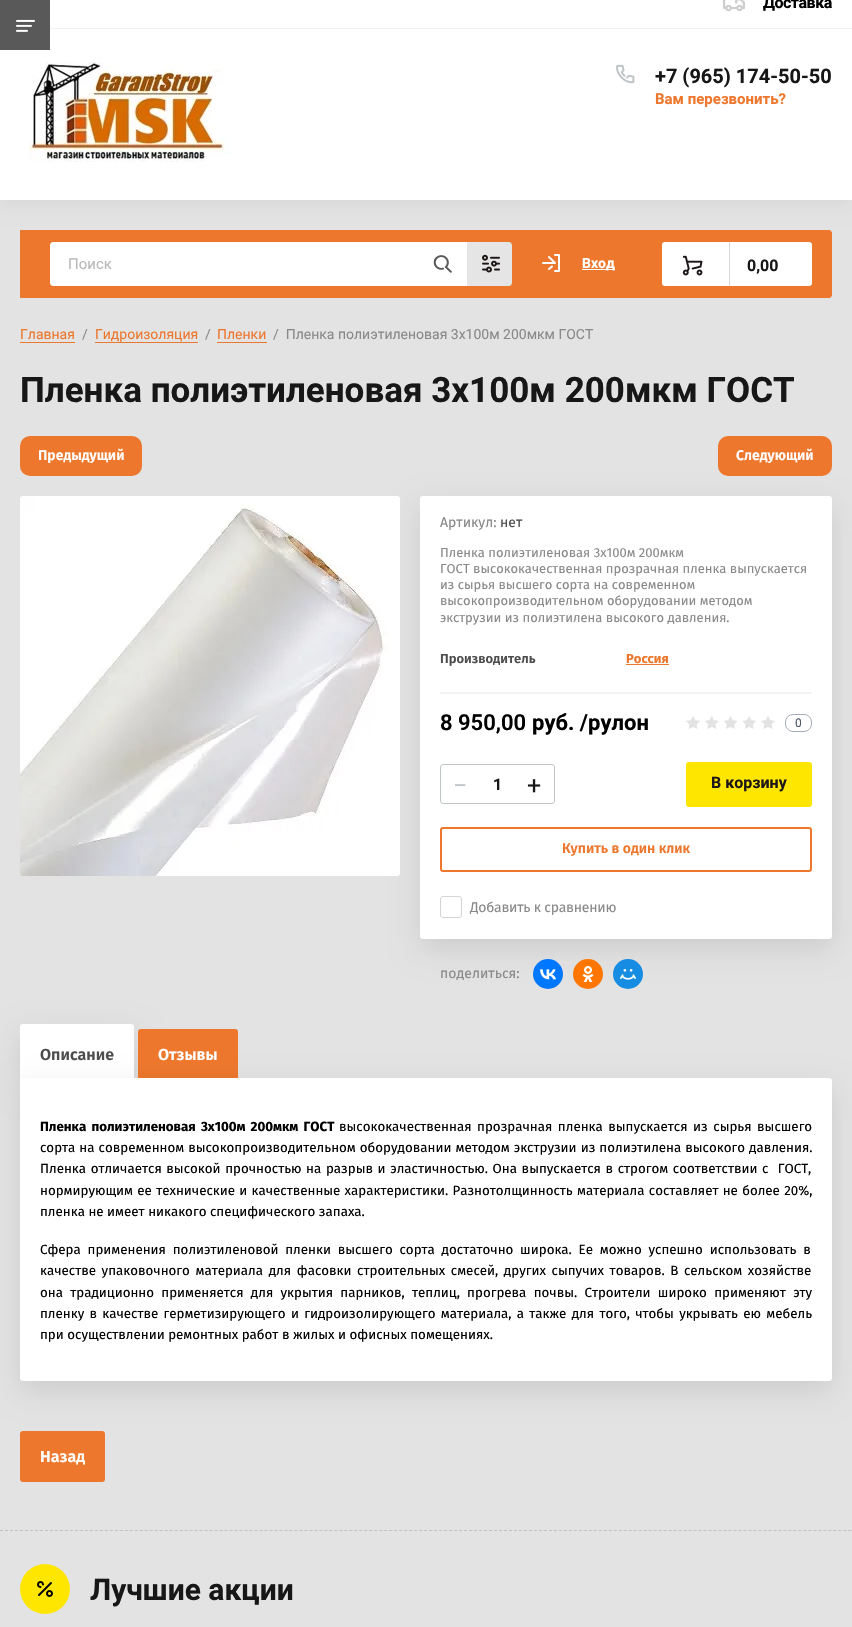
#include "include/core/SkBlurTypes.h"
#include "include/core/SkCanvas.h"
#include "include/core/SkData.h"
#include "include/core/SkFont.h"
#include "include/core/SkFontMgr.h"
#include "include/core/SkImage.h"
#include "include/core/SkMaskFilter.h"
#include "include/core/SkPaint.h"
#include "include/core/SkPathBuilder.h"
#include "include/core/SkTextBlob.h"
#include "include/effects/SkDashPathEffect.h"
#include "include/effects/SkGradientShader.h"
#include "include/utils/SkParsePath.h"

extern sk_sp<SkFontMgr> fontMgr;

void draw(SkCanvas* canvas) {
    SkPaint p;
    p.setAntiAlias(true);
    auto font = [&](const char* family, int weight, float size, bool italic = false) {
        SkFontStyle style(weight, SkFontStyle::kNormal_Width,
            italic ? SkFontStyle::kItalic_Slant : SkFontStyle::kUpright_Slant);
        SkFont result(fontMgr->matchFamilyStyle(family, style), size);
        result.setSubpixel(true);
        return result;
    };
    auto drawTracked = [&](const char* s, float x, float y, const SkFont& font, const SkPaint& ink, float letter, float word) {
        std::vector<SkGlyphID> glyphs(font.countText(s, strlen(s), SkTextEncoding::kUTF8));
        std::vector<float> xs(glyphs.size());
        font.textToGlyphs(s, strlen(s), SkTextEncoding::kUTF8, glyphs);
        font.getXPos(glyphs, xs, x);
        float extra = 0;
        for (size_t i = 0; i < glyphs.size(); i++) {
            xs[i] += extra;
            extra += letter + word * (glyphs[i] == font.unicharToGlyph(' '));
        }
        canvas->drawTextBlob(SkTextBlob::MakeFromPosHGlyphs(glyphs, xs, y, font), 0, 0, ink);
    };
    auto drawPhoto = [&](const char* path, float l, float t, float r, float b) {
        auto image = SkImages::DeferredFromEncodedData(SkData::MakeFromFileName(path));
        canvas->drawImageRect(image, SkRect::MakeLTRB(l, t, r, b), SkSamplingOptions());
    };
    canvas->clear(0xFFE3E3E3);
    p.setColor(0x0D000000);
    p.setMaskFilter(SkMaskFilter::MakeBlur(kNormal_SkBlurStyle, 7.5f));
    canvas->drawRect(SkRect::MakeLTRB(0, -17, 852, 205), p);
    p.setMaskFilter(nullptr);
    p.setColor(0xFFFFFFFF);
    canvas->drawRect(SkRect::MakeLTRB(0, 0, 852, 200), p);
    p.setColor(0xFF595959);
    canvas->drawRect(SkRect::MakeLTRB(0, 0, 50, 50), p);
    drawPhoto("media/1.png", 16, 19, 35, 32);
    drawPhoto("media/2.png", 723, 0, 745, 12);
    auto font1 = font("Roboto", 700, 16);
    p.setColor(0xFF000000);
    drawTracked("Доставка", 763, 8, font1, p, -0.5f, 0);
    p.setColor(0xFFF1F1F1);
    canvas->drawRect(SkRect::MakeLTRB(50, 28, 852, 29), p);
    drawPhoto("media/3.png", 28, 62, 228, 162);
    drawPhoto("media/4.png", 616, 64, 635, 84);
    auto font2 = font("Roboto", 700, 20);
    p.setColor(0xFF181717);
    canvas->drawString("+7 (965) 174-50-50", 655, 83, font2, p);
    auto font3 = font("Roboto", 700, 15);
    p.setColor(0xFFED772D);
    canvas->drawString("Вам перезвонить?", 655, 104, font3, p);
    canvas->drawPath(SkPathBuilder().moveTo(20, 230).lineTo(829, 230).cubicTo(830.5f, 230, 832, 231.5f, 832, 233).lineTo(832, 295).cubicTo(832, 296.5f, 830.5f, 298, 829, 298).lineTo(20, 298).close().detach(), p);
    p.setColor(0xFFFFFFFF);
    canvas->drawPath(SkPathBuilder().moveTo(53, 242).lineTo(467, 242).lineTo(467, 286).lineTo(53, 286).cubicTo(51.5f, 286, 50, 284.5f, 50, 283).lineTo(50, 245).cubicTo(50, 243.5f, 51.5f, 242, 53, 242).close().detach(), p);
    auto font4 = font("Roboto", 400, 15);
    p.setColor(0xFFB8B8B8);
    canvas->drawString("Поиск", 68, 269, font4, p);
    drawPhoto("media/5.png", 433, 255, 452, 273);
    p.setColor(0xFFE5E5E5);
    canvas->drawPath(SkPathBuilder().moveTo(467, 242).lineTo(509, 242).cubicTo(510.5f, 242, 512, 243.5f, 512, 245).lineTo(512, 283).cubicTo(512, 284.5f, 510.5f, 286, 509, 286).lineTo(467, 286).close().detach(), p);
    drawPhoto("media/6.png", 482, 254, 500, 273);
    drawPhoto("media/7.png", 542, 254, 560, 272);
    p.setColor(0xFFFFFFFF);
    canvas->drawRect(SkRect::MakeLTRB(582, 269, 615, 270), p);
    auto font5 = font("Roboto", 700, 14);
    canvas->drawString("Вход", 582, 268, font5, p);
    canvas->drawRoundRect(SkRect::MakeLTRB(662, 242, 812, 286), 3, 3, p);
    drawPhoto("media/8.png", 682, 255, 703, 276);
    p.setColor(0xFFD9D9D9);
    canvas->drawRect(SkRect::MakeLTRB(729, 242, 730, 286), p);
    p.setColor(0xFF181717);
    canvas->drawString("0,00", 747, 271, font1, p);
    p.setStyle(SkPaint::kStroke_Style);
    p.setStrokeWidth(1);
    p.setColor(0xFFC1C1C1);
    p.setPathEffect(SkDashPathEffect::Make({{3, 1.99f}}, 0));
    canvas->drawPath(SkPathBuilder().moveTo(0, 1530.5f).lineTo(852, 1530.5f).detach(), p);
    p.setPathEffect(nullptr);
    auto font6 = font("Roboto", 400, 14);
    p.setStyle(SkPaint::kFill_Style);
    p.setColor(0xFFED772D);
    canvas->drawString("Главная", 20, 339, font6, p);
    canvas->drawRect(SkRect::MakeLTRB(20, 342, 75, 343), p);
    p.setColor(0xFF898989);
    canvas->drawString("/", 82, 339, font6, p);
    p.setColor(0xFFED772D);
    canvas->drawString("Гидроизоляция", 95, 339, font6, p);
    canvas->drawRect(SkRect::MakeLTRB(95, 342, 198, 343), p);
    p.setColor(0xFF898989);
    canvas->drawString("/", 205, 339, font6, p);
    p.setColor(0xFFED772D);
    canvas->drawString("Пленки", 217, 339, font6, p);
    canvas->drawRect(SkRect::MakeLTRB(217, 342, 267, 343), p);
    p.setColor(0xFF898989);
    canvas->drawString("/  Пленка полиэтиленовая 3х100м 200мкм ГОСТ", 273, 339, font6, p);
    auto font7 = font("Roboto", 700, 35);
    p.setColor(0xFF181717);
    canvas->drawString("Пленка полиэтиленовая 3х100м 200мкм ГОСТ", 20, 402, font7, p);
    p.setColor(0xFFED772D);
    canvas->drawRoundRect(SkRect::MakeLTRB(20, 436, 142, 476), 10, 10, p);
    auto font8 = font("Fira Sans", 600, 14);
    p.setColor(0xFFFFFFFF);
    canvas->drawString("Предыдущий", 38, 460, font8, p);
    p.setColor(0xFFED772D);
    canvas->drawRoundRect(SkRect::MakeLTRB(718, 436, 832, 476), 10, 10, p);
    p.setColor(0xFFFFFFFF);
    canvas->drawString("Следующий", 736, 460, font8, p);
    p.setColor(0x1A000000);
    p.setMaskFilter(SkMaskFilter::MakeBlur(kNormal_SkBlurStyle, 14.5f));
    canvas->drawRoundRect(SkRect::MakeLTRB(420, 506, 832, 949), 3, 3, p);
    p.setMaskFilter(nullptr);
    drawPhoto("media/9.png", 20, 496, 400, 876);
    p.setColor(0xFFFFFFFF);
    canvas->drawRoundRect(SkRect::MakeLTRB(420, 496, 832, 939), 3, 3, p);
    auto font9 = font("Fira Sans", 400, 14);
    p.setColor(0xFF898989);
    canvas->drawString("Артикул:", 440, 527, font9, p);
    p.setColor(0xFF4D4D4D);
    canvas->drawString("нет", 500, 527, font9, p);
    auto font10 = font("Fira Sans", 400, 13);
    p.setColor(0xFF898989);
    {
        const struct { const char* s; float x, y; } items[] = {
            {"Пленка полиэтиленовая 3х100м 200мкм", 440, 557},
            {"ГОСТ высококачественная прозрачная пленка выпускается", 440, 573},
            {"из сырья высшего сорта на современном", 440, 589},
            {"высокопроизводительном оборудовании методом", 440, 605},
            {"экструзии из полиэтилена высокого давления.", 440, 622},
        };
        for (auto [s, x, y] : items) {
            canvas->drawString(s, x, y, font10, p);
        }
    }
    auto font11 = font("Fira Sans", 600, 13);
    p.setColor(0xFF4D4D4D);
    canvas->drawString("Производитель", 440, 663, font11, p);
    auto font12 = font("Fira Sans", 700, 13);
    p.setColor(0xFFED772D);
    canvas->drawString("Россия", 626, 663, font12, p);
    canvas->drawRect(SkRect::MakeLTRB(626, 664, 669, 665), p);
    p.setColor(0xFFF3F3F3);
    canvas->drawRect(SkRect::MakeLTRB(440, 692, 812, 694), p);
    auto font13 = font("Roboto", 600, 22);
    p.setColor(0xFF000000);
    canvas->drawString("8 950,00", 440, 730, font13, p);
    auto font14 = font("Roboto", 700, 22);
    canvas->drawString("руб. /рулон", 532, 730, font14, p);
    drawPhoto("media/10.png", 686, 716, 775, 729);
    p.setStyle(SkPaint::kStroke_Style);
    p.setColor(0xFFA7ADB6);
    canvas->drawRoundRect(SkRect::MakeLTRB(785.5f, 714.5f, 811.5f, 731.5f), 7.5f, 7.5f, p);
    auto font15 = font("Roboto", 400, 12);
    p.setStyle(SkPaint::kFill_Style);
    p.setColor(0xFF4C5667);
    canvas->drawString("0", 795, 727, font15, p);
    p.setStyle(SkPaint::kStroke_Style);
    p.setColor(0xFFC1C6C8);
    canvas->drawRoundRect(SkRect::MakeLTRB(440.5f, 764.5f, 554.5f, 803.5f), 2.5f, 2.5f, p);
    auto font16 = font("Roboto", 400, 25);
    p.setStyle(SkPaint::kFill_Style);
    canvas->drawString("−", 453, 794, font16, p);
    p.setColor(0xFF181717);
    canvas->drawString("1", 493, 790, font1, p);
    canvas->drawString("+", 527, 794, font16, p);
    p.setColor(0xFFFFE600);
    canvas->drawRoundRect(SkRect::MakeLTRB(687, 763, 811, 806), 2, 2, p);
    p.setStyle(SkPaint::kStroke_Style);
    p.setStrokeWidth(2);
    canvas->drawRoundRect(SkRect::MakeLTRB(687, 763, 811, 806), 2, 2, p);
    p.setStyle(SkPaint::kFill_Style);
    p.setColor(0xFF1E1717);
    canvas->drawString("В корзину", 711, 788, font1, p);
    p.setStyle(SkPaint::kStroke_Style);
    p.setColor(0xFFED772D);
    canvas->drawRoundRect(SkRect::MakeLTRB(441, 828, 811, 871), 2, 2, p);
    p.setStyle(SkPaint::kFill_Style);
    canvas->drawString("Купить в один клик", 562, 853, font8, p);
    p.setStyle(SkPaint::kStroke_Style);
    p.setStrokeWidth(1);
    p.setColor(0xFFD4D4D4);
    canvas->drawRoundRect(SkRect::MakeLTRB(440.5f, 896.5f, 461.5f, 917.5f), 2.5f, 2.5f, p);
    p.setStyle(SkPaint::kFill_Style);
    p.setColor(0xFF898989);
    drawTracked("Добавить к сравнению", 470, 912, font9, p, -0.25f, 0);
    canvas->drawString("поделиться:", 440, 978, font9, p);
    p.setColor(0xFF0077FF);
    canvas->drawCircle(548, 974, 15, p);
    drawPhoto("media/11.png", 540, 969, 556, 980);
    p.setColor(0xFFFF7700);
    canvas->drawCircle(588, 974, 15, p);
    drawPhoto("media/12.png", 582, 966, 594, 982);
    p.setColor(0xFF168DE2);
    canvas->drawCircle(628, 974, 15, p);
    drawPhoto("media/13.png", 620, 969, 636, 980);
    p.setColor(0x1A000000);
    p.setMaskFilter(SkMaskFilter::MakeBlur(kNormal_SkBlurStyle, 14.5f));
    canvas->drawRect(SkRect::MakeLTRB(20, 1034, 134, 1088), p);
    p.setMaskFilter(nullptr);
    p.setColor(0xFFFFFFFF);
    canvas->drawRoundRect(SkRect::MakeLTRB(20, 1024, 134, 1090), 3, 3, p);
    auto font17 = font("Fira Sans", 600, 16);
    p.setColor(0xFF4D4D4D);
    canvas->drawString("Описание", 40, 1060, font17, p);
    p.setColor(0xFFED772D);
    canvas->drawRoundRect(SkRect::MakeLTRB(138, 1029, 238, 1090), 3, 3, p);
    p.setColor(0xFFFFFFFF);
    canvas->drawString("Отзывы", 158, 1060, font17, p);
    p.setColor(0xFFED772D);
    canvas->drawRoundRect(SkRect::MakeLTRB(20, 1431, 105, 1482), 3, 3, p);
    p.setColor(0x1A000000);
    p.setMaskFilter(SkMaskFilter::MakeBlur(kNormal_SkBlurStyle, 14.5f));
    canvas->drawRoundRect(SkRect::MakeLTRB(20, 1088, 832, 1391), 3, 3, p);
    p.setMaskFilter(nullptr);
    p.setColor(0xFFFFFFFF);
    canvas->drawRoundRect(SkRect::MakeLTRB(20, 1078, 832, 1381), 3, 3, p);
    auto font18 = font("Fira Sans", 700, 13.33f);
    p.setColor(0xFF000000);
    drawTracked("Пленка полиэтиленовая 3х100м 200мкм ГОСТ", 40, 1131, font18, p, 0, 2);
    auto font19 = font("Fira Sans", 400, 13.33f);
    drawTracked("высококачественная прозрачная пленка выпускается из сырья высшего", 339, 1131, font19, p, 0, 2);
    drawTracked("сорта на современном высокопроизводительном оборудовании методом экструзии из полиэтилена высокого давления.", 40, 1152, font19, p, 0, 0.5f);
    drawTracked("Пленка отличается высокой прочностью на разрыв и эластичностью. Она выпускается в строгом соответствии с  ГОСТ,", 40, 1173, font19, p, 0, 1.1f);
    drawTracked("нормирующим ее технические и качественные характеристики. Разнотолщинность материала составляет не более 20%,", 40, 1195, font19, p, 0, 0.75f);
    canvas->drawString("пленка не имеет никакого специфического запаха.", 40, 1216, font19, p);
    drawTracked("Сфера применения полиэтиленовой пленки высшего сорта достаточно широка. Ее можно успешно использовать в", 40, 1254, font19, p, 0, 3.25f);
    drawTracked("качестве упаковочного материала для фасовки строительных смесей, других сыпучих товаров. В сельском хозяйстве", 40, 1275, font19, p, 0, 2.1f);
    drawTracked("она традиционно применяется для укрытия парников, теплиц, прогрева почвы. Строители широко применяют эту", 40, 1297, font19, p, 0, 3.75f);
    drawTracked("пленку в качестве герметизирующего и гидроизолирующего материала, а также для того, чтобы укрывать ею мебель", 40, 1318, font19, p, 0, 1.75f);
    canvas->drawString("при осуществлении ремонтных работ в жилых и офисных помещениях.", 40, 1339, font19, p);
    p.setColor(0xFFFFFFFF);
    canvas->drawString("Назад", 40, 1462, font17, p);
    p.setColor(0xFFFFE600);
    canvas->drawCircle(45, 1589, 25, p);
    drawPhoto("media/14.png", 37, 1581, 53, 1597);
    auto font20 = font("Roboto", 700, 30);
    p.setColor(0xFF181717);
    canvas->drawString("Лучшие акции", 90, 1600, font20, p);
}
